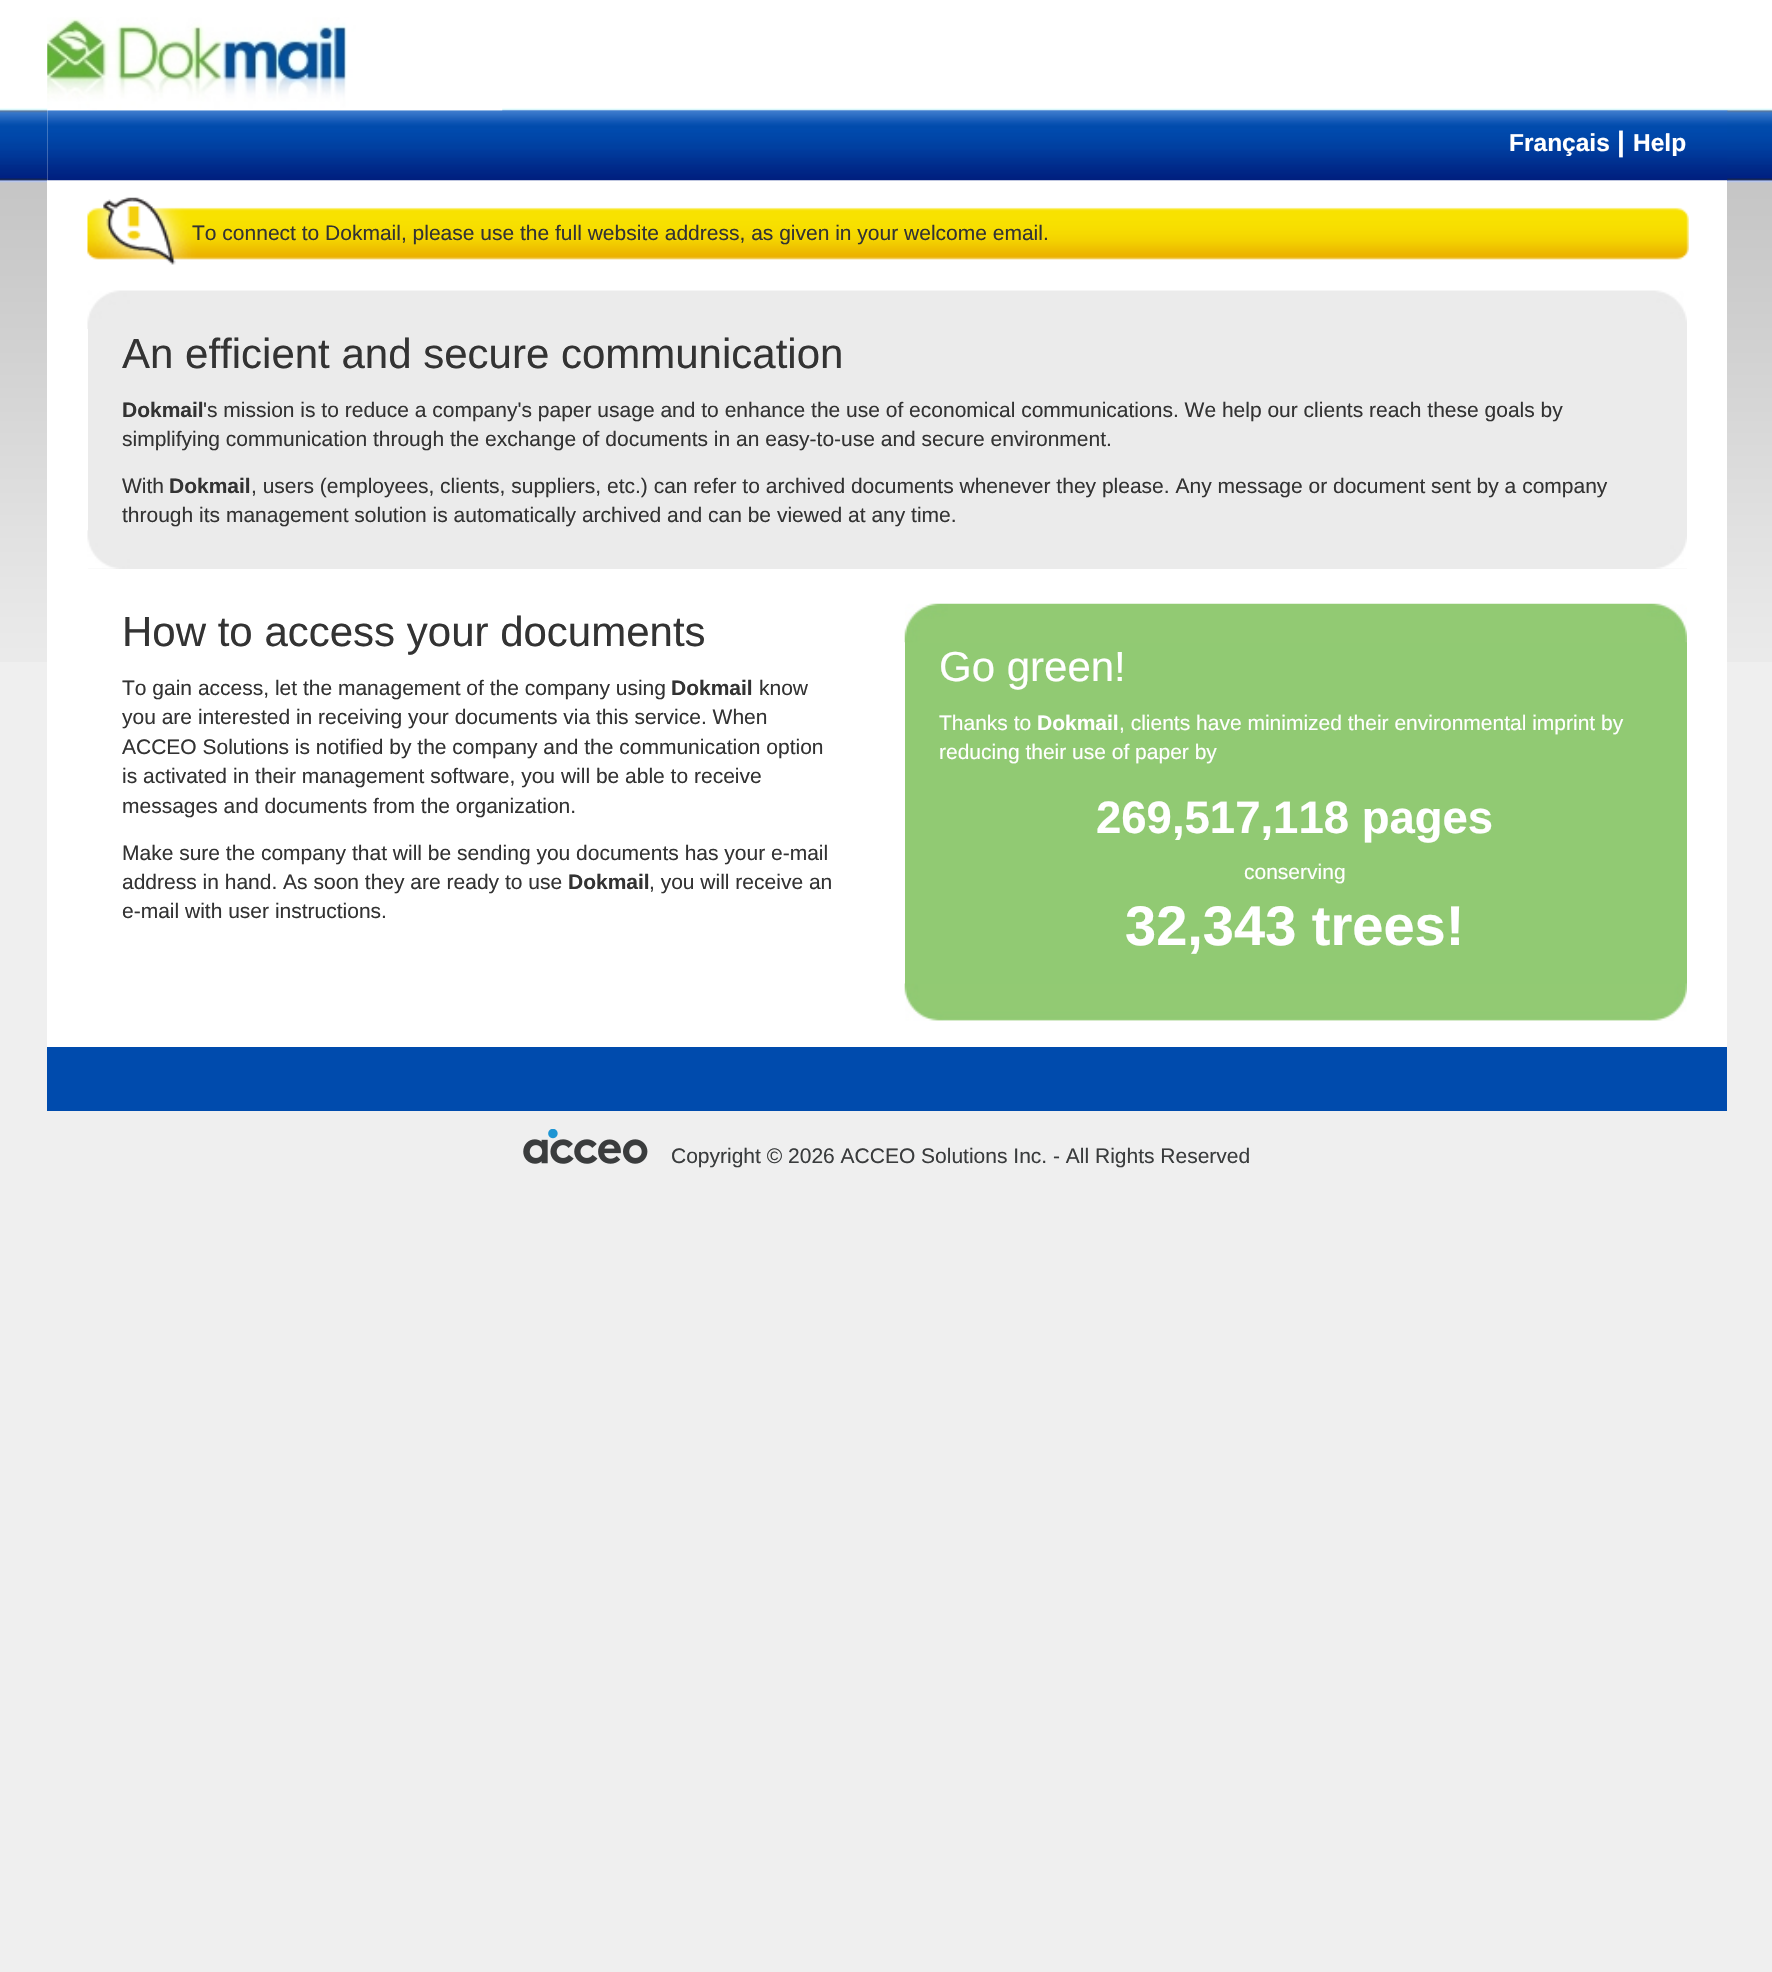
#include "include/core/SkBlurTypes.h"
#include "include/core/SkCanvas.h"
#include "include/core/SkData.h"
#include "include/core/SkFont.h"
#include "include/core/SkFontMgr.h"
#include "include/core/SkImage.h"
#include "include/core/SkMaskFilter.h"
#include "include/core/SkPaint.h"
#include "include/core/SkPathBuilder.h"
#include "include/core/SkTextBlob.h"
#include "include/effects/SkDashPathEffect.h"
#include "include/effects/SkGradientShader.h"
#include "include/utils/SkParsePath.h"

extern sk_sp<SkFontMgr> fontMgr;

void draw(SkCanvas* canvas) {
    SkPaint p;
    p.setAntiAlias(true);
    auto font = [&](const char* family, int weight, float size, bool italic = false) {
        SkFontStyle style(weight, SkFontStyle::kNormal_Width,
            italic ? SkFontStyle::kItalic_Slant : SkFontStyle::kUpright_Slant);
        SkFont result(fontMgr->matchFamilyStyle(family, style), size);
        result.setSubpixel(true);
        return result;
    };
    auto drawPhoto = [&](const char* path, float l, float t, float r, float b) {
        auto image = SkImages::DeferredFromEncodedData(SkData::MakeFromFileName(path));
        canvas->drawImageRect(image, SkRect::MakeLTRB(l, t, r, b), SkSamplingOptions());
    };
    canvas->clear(0xFFEFEFEF);
    drawPhoto("media/1.png", 0, 0, 1772, 662);
    p.setColor(0xFFFFFFFF);
    canvas->drawRect(SkRect::MakeLTRB(47, 110, 1727, 1047), p);
    drawPhoto("media/3.png", 47, 110, 1728, 181);
    drawPhoto("media/2.png", 47, 17, 503, 111);
    auto font1 = font("Liberation Sans", 700, 24.5f);
    canvas->drawString("Français", 1509, 151, font1, p);
    auto font2 = font("Liberation Sans", 700, 28);
    canvas->drawString("|", 1617, 151, font2, p);
    canvas->drawString("Help", 1633, 151, font1, p);
    drawPhoto("media/4.png", 87, 197, 1689, 265);
    auto font3 = font("Liberation Sans", 400, 21);
    p.setColor(0xFF333333);
    canvas->drawString("To connect to Dokmail, please use the full website address, as given in your welcome email.", 192, 240, font3, p);
    p.setColor(0xFFEBEBEB);
    canvas->drawRect(SkRect::MakeLTRB(88, 329, 1687, 569), p);
    drawPhoto("media/5.png", 87, 290, 1687, 329);
    auto font4 = font("Liberation Sans", 400, 42);
    p.setColor(0xFF333333);
    canvas->drawString("An efficient and secure communication", 122, 368, font4, p);
    auto font5 = font("Liberation Sans", 700, 21);
    canvas->drawString("Dokmail", 122, 417, font5, p);
    {
        const struct { const char* s; float x, y; } items[] = {
            {"'s mission is to reduce a company's paper usage and to enhance the use of economical communications. We help our clients reach these goals by", 203, 417},
            {"simplifying communication through the exchange of documents in an easy-to-use and secure environment.", 122, 446},
            {"With", 122, 493},
        };
        for (auto [s, x, y] : items) {
            canvas->drawString(s, x, y, font3, p);
        }
    }
    canvas->drawString("Dokmail", 169, 493, font5, p);
    canvas->drawString(", users (employees, clients, suppliers, etc.) can refer to archived documents whenever they please. Any message or document sent by a company", 251, 493, font3, p);
    canvas->drawString("through its management solution is automatically archived and can be viewed at any time.", 122, 522, font3, p);
    drawPhoto("media/6.png", 87, 530, 1687, 569);
    canvas->drawString("How to access your documents", 122, 646, font4, p);
    canvas->drawString("To gain access, let the management of the company using", 122, 695, font3, p);
    canvas->drawString("Dokmail", 671, 695, font5, p);
    {
        const struct { const char* s; float x, y; } items[] = {
            {"know", 759, 695},
            {"you are interested in receiving your documents via this service. When", 122, 724},
            {"ACCEO Solutions is notified by the company and the communication option", 122, 754},
            {"is activated in their management software, you will be able to receive", 122, 783},
            {"messages and documents from the organization.", 122, 813},
            {"Make sure the company that will be sending you documents has your e-mail", 122, 860},
            {"address in hand. As soon they are ready to use", 122, 889},
        };
        for (auto [s, x, y] : items) {
            canvas->drawString(s, x, y, font3, p);
        }
    }
    canvas->drawString("Dokmail", 568, 889, font5, p);
    canvas->drawString(", you will receive an", 649, 889, font3, p);
    canvas->drawString("e-mail with user instructions.", 122, 918, font3, p);
    p.setColor(0xFF91CA73);
    canvas->drawRect(SkRect::MakeLTRB(905, 642, 1687, 984), p);
    drawPhoto("media/7.png", 904, 603, 1687, 643);
    p.setColor(0xFFFFFFFF);
    canvas->drawString("Go green!", 939, 681, font4, p);
    canvas->drawString("Thanks to", 939, 730, font3, p);
    canvas->drawString("Dokmail", 1037, 730, font5, p);
    canvas->drawString(", clients have minimized their environmental imprint by", 1119, 730, font3, p);
    canvas->drawString("reducing their use of paper by", 939, 759, font3, p);
    auto font6 = font("Liberation Sans", 700, 45.5f);
    canvas->drawString("269,517,118 pages", 1096, 833, font6, p);
    canvas->drawString("conserving", 1244, 879, font3, p);
    auto font7 = font("Liberation Sans", 700, 56);
    canvas->drawString("32,343 trees!", 1125, 945, font7, p);
    drawPhoto("media/8.png", 904, 983, 1687, 1021);
    p.setColor(0xFF004BAD);
    canvas->drawRect(SkRect::MakeLTRB(47, 1047, 1727, 1111), p);
    drawPhoto("media/9.png", 523, 1129, 648, 1164);
    p.setColor(0xFF3A3C3D);
    canvas->drawString("Copyright © 2026 ACCEO Solutions Inc. - All Rights Reserved", 671, 1163, font3, p);
}
